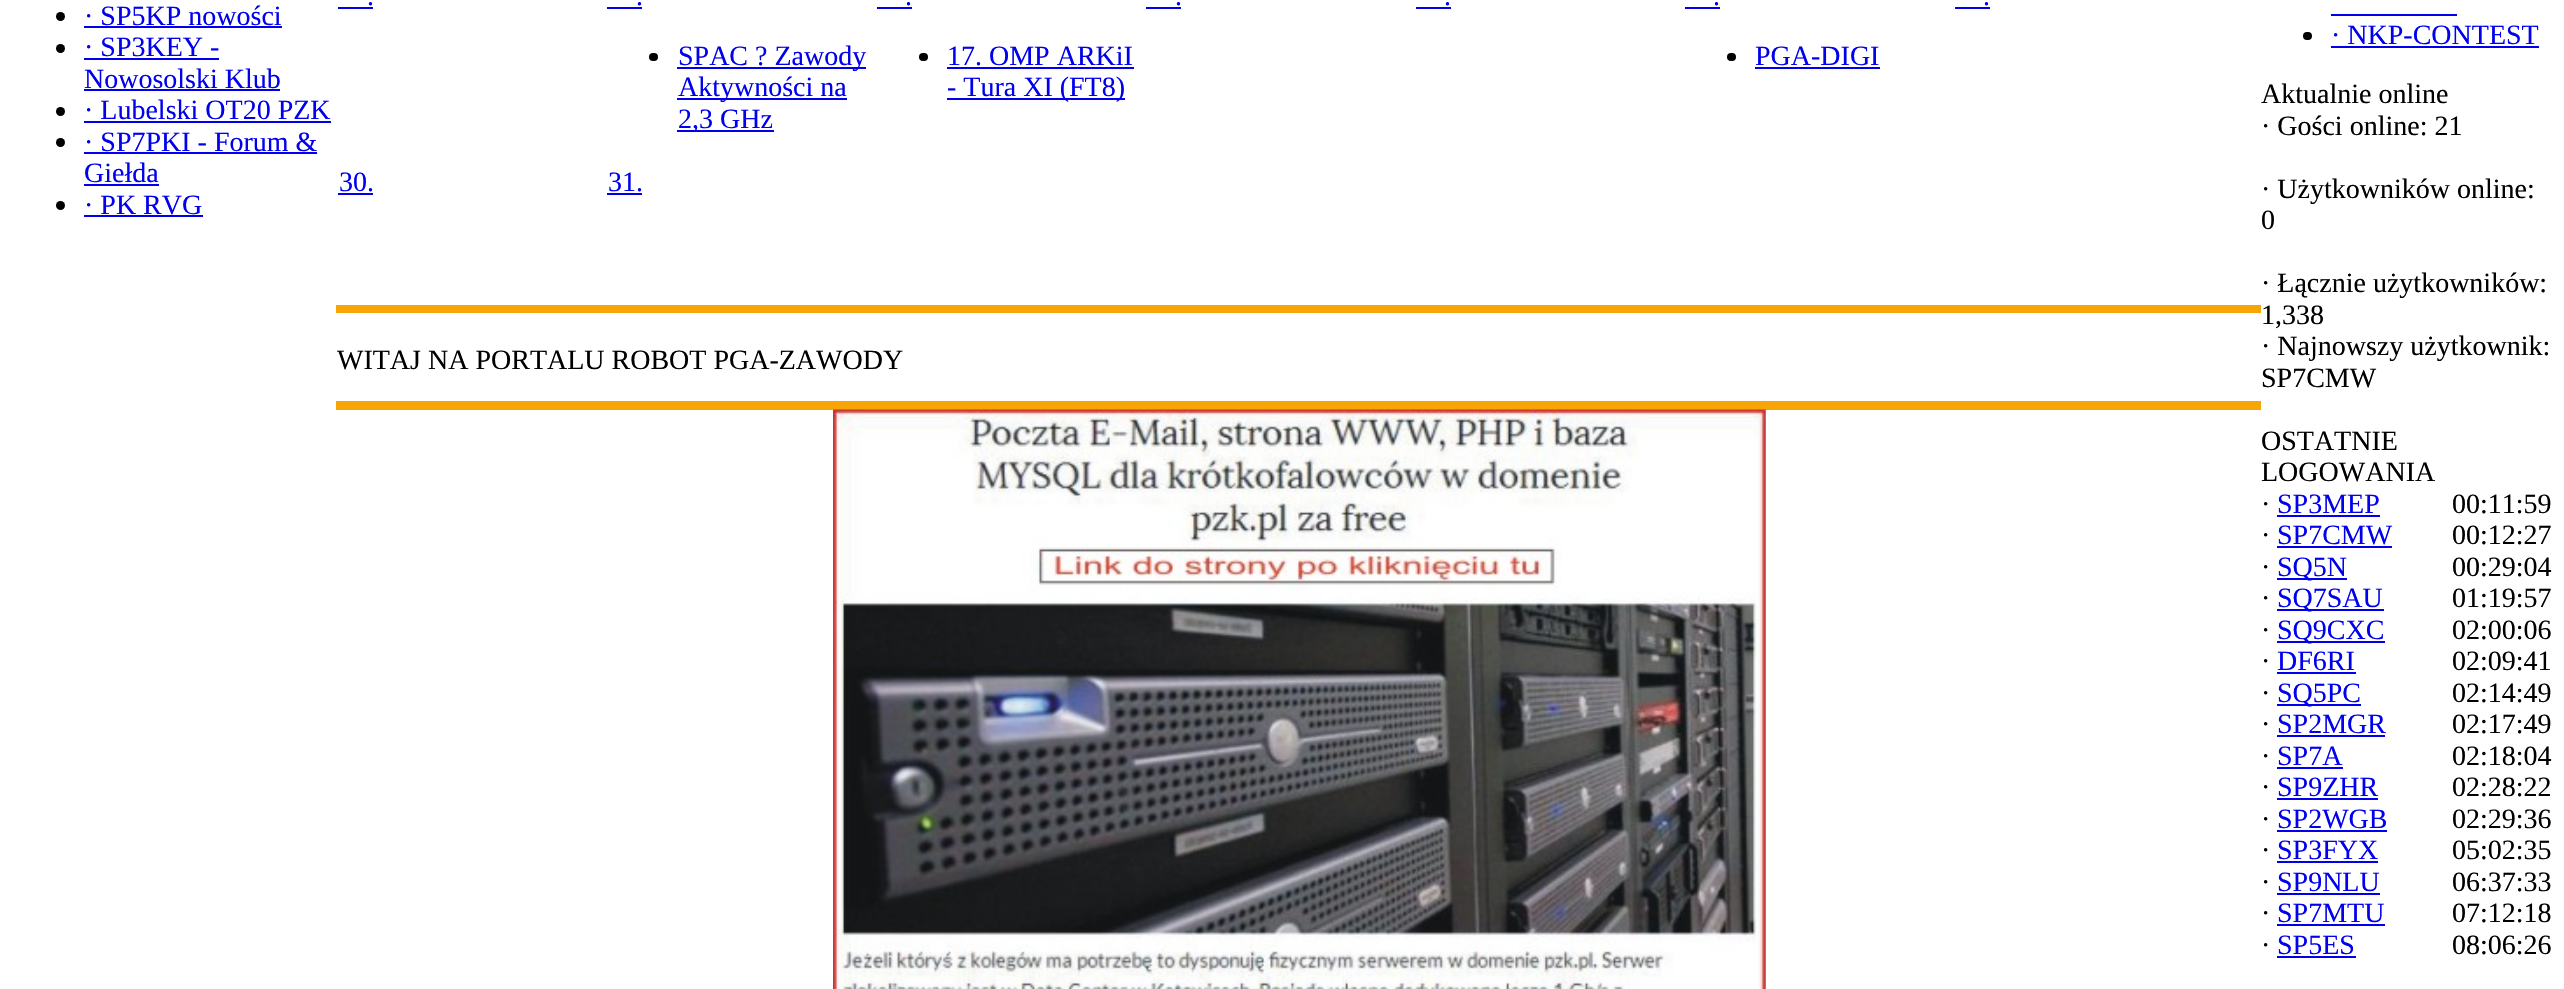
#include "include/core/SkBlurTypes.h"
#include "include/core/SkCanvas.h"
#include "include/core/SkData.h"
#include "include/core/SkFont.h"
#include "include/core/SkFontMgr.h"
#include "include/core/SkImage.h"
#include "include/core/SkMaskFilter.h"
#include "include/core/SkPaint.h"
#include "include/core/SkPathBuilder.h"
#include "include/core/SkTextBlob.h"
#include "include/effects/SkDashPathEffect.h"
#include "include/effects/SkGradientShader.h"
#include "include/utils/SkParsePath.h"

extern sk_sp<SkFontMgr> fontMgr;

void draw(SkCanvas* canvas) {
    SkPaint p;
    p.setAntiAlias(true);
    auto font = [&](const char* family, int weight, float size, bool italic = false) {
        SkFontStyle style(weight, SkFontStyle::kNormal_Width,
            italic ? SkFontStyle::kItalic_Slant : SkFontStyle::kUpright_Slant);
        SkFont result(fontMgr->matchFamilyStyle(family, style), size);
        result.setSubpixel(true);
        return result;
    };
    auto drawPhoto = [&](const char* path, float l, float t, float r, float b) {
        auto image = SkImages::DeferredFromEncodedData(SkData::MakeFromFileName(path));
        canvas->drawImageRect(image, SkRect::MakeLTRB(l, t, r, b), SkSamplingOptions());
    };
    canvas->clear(0xFFFFFFFF);
    p.setColor(0xFF000000);
    canvas->drawCircle(60.5f, 16.5f, 4.5f, p);
    auto font1 = font("Liberation Serif", 400, 28);
    p.setColor(0xFF0000EE);
    canvas->drawString("· SP5KP nowości", 84, 25, font1, p);
    canvas->drawRect(SkRect::MakeLTRB(84, 26, 282, 28), p);
    p.setColor(0xFF000000);
    canvas->drawCircle(60.5f, 48.5f, 4.5f, p);
    p.setColor(0xFF0000EE);
    canvas->drawString("· SP3KEY -", 84, 56, font1, p);
    canvas->drawRect(SkRect::MakeLTRB(84, 58, 219, 60), p);
    canvas->drawString("Nowosolski Klub", 84, 88, font1, p);
    canvas->drawRect(SkRect::MakeLTRB(84, 89, 280, 91), p);
    p.setColor(0xFF000000);
    canvas->drawCircle(60.5f, 111.5f, 4.5f, p);
    p.setColor(0xFF0000EE);
    canvas->drawString("· Lubelski OT20 PZK", 84, 119, font1, p);
    canvas->drawRect(SkRect::MakeLTRB(84, 121, 331, 123), p);
    p.setColor(0xFF000000);
    canvas->drawCircle(60.5f, 142.5f, 4.5f, p);
    p.setColor(0xFF0000EE);
    canvas->drawString("· SP7PKI - Forum &", 84, 151, font1, p);
    canvas->drawRect(SkRect::MakeLTRB(84, 152, 317, 154), p);
    canvas->drawString("Giełda", 84, 182, font1, p);
    canvas->drawRect(SkRect::MakeLTRB(84, 184, 159, 186), p);
    p.setColor(0xFF000000);
    canvas->drawCircle(60.5f, 205.5f, 4.5f, p);
    p.setColor(0xFF0000EE);
    canvas->drawString("· PK RVG", 84, 214, font1, p);
    canvas->drawRect(SkRect::MakeLTRB(84, 215, 203, 217), p);
    canvas->drawString(".", 367, 5, font1, p);
    canvas->drawRect(SkRect::MakeLTRB(338, 7, 373, 9), p);
    canvas->drawString(".", 636, 5, font1, p);
    canvas->drawRect(SkRect::MakeLTRB(607, 7, 642, 9), p);
    p.setColor(0xFF000000);
    canvas->drawRoundRect(SkRect::MakeLTRB(649, 53, 658, 61), 4, 4, p);
    p.setColor(0xFF0000EE);
    canvas->drawRect(SkRect::MakeLTRB(677, 67, 866, 69), p);
    canvas->drawString("SPAC ? Zawody", 678, 65, font1, p);
    canvas->drawRect(SkRect::MakeLTRB(677, 98, 847, 100), p);
    canvas->drawString("Aktywności na", 678, 96, font1, p);
    canvas->drawRect(SkRect::MakeLTRB(677, 130, 774, 132), p);
    canvas->drawString("2,3 GHz", 678, 128, font1, p);
    canvas->drawString(".", 905, 5, font1, p);
    canvas->drawRect(SkRect::MakeLTRB(877, 7, 912, 9), p);
    p.setColor(0xFF000000);
    canvas->drawRoundRect(SkRect::MakeLTRB(919, 53, 928, 61), 4, 4, p);
    p.setColor(0xFF0000EE);
    canvas->drawString("17. OMP ARKiI", 947, 65, font1, p);
    canvas->drawRect(SkRect::MakeLTRB(947, 67, 1134, 69), p);
    canvas->drawRect(SkRect::MakeLTRB(947, 98, 1125, 100), p);
    canvas->drawString("- Tura XI (FT8)", 947, 96, font1, p);
    canvas->drawString(".", 1175, 5, font1, p);
    canvas->drawRect(SkRect::MakeLTRB(1146, 7, 1181, 9), p);
    canvas->drawString(".", 1444, 5, font1, p);
    canvas->drawRect(SkRect::MakeLTRB(1416, 7, 1451, 9), p);
    canvas->drawString(".", 1713, 5, font1, p);
    canvas->drawRect(SkRect::MakeLTRB(1685, 7, 1720, 9), p);
    p.setColor(0xFF000000);
    canvas->drawRoundRect(SkRect::MakeLTRB(1727, 53, 1736, 61), 4, 4, p);
    p.setColor(0xFF0000EE);
    canvas->drawString("PGA-DIGI", 1755, 65, font1, p);
    canvas->drawRect(SkRect::MakeLTRB(1755, 67, 1880, 69), p);
    canvas->drawString(".", 1983, 5, font1, p);
    canvas->drawRect(SkRect::MakeLTRB(1955, 7, 1990, 9), p);
    canvas->drawString("30.", 339, 191, font1, p);
    canvas->drawRect(SkRect::MakeLTRB(338, 193, 373, 195), p);
    canvas->drawString("31.", 608, 191, font1, p);
    canvas->drawRect(SkRect::MakeLTRB(607, 193, 642, 195), p);
    p.setColor(0xFFF6A504);
    canvas->drawRect(SkRect::MakeLTRB(336, 305, 2261, 313), p);
    p.setColor(0xFF000000);
    canvas->drawString("WITAJ NA PORTALU ROBOT PGA-ZAWODY", 337, 369, font1, p);
    p.setColor(0xFFF6A504);
    canvas->drawRect(SkRect::MakeLTRB(336, 401, 2261, 410), p);
    drawPhoto("media/1.png", 833, 409, 1766, 989);
    p.setColor(0xFF0000EE);
    canvas->drawRect(SkRect::MakeLTRB(2331, 14, 2457, 16), p);
    p.setColor(0xFF000000);
    canvas->drawRoundRect(SkRect::MakeLTRB(2303, 32, 2312, 40), 4, 4, p);
    p.setColor(0xFF0000EE);
    canvas->drawString("· NKP-CONTEST", 2331, 44, font1, p);
    canvas->drawRect(SkRect::MakeLTRB(2331, 46, 2539, 48), p);
    p.setColor(0xFF000000);
    {
        const struct { const char* s; float x, y; } items[] = {
            {"Aktualnie online", 2261, 103},
            {"· Gości online: 21", 2261, 135},
            {"· Użytkowników online:", 2261, 198},
            {"0", 2261, 229},
            {"· Łącznie użytkowników:", 2261, 292},
            {"1,338", 2261, 324},
            {"· Najnowszy użytkownik:", 2261, 355},
            {"SP7CMW", 2261, 387},
            {"OSTATNIE", 2261, 450},
            {"LOGOWANIA", 2261, 481},
            {"·", 2261, 513},
        };
        for (auto [s, x, y] : items) {
            canvas->drawString(s, x, y, font1, p);
        }
    }
    p.setColor(0xFF0000EE);
    canvas->drawString("SP3MEP", 2277, 513, font1, p);
    canvas->drawRect(SkRect::MakeLTRB(2277, 515, 2380, 517), p);
    p.setColor(0xFF000000);
    canvas->drawString("00:11:59", 2452, 513, font1, p);
    canvas->drawString("·", 2261, 544, font1, p);
    p.setColor(0xFF0000EE);
    canvas->drawString("SP7CMW", 2277, 544, font1, p);
    canvas->drawRect(SkRect::MakeLTRB(2277, 546, 2392, 548), p);
    p.setColor(0xFF000000);
    canvas->drawString("00:12:27", 2452, 544, font1, p);
    canvas->drawString("·", 2261, 576, font1, p);
    p.setColor(0xFF0000EE);
    canvas->drawRect(SkRect::MakeLTRB(2277, 578, 2347, 580), p);
    canvas->drawString("SQ5N", 2277, 576, font1, p);
    p.setColor(0xFF000000);
    canvas->drawString("00:29:04", 2452, 576, font1, p);
    canvas->drawString("·", 2261, 607, font1, p);
    p.setColor(0xFF0000EE);
    canvas->drawRect(SkRect::MakeLTRB(2277, 609, 2384, 611), p);
    canvas->drawString("SQ7SAU", 2277, 607, font1, p);
    p.setColor(0xFF000000);
    canvas->drawString("01:19:57", 2452, 607, font1, p);
    canvas->drawString("·", 2261, 639, font1, p);
    p.setColor(0xFF0000EE);
    canvas->drawRect(SkRect::MakeLTRB(2277, 641, 2385, 643), p);
    canvas->drawString("SQ9CXC", 2277, 639, font1, p);
    p.setColor(0xFF000000);
    canvas->drawString("02:00:06", 2452, 639, font1, p);
    canvas->drawString("·", 2261, 670, font1, p);
    p.setColor(0xFF0000EE);
    canvas->drawString("DF6RI", 2277, 670, font1, p);
    canvas->drawRect(SkRect::MakeLTRB(2277, 672, 2356, 674), p);
    p.setColor(0xFF000000);
    canvas->drawString("02:09:41", 2452, 670, font1, p);
    canvas->drawString("·", 2261, 702, font1, p);
    p.setColor(0xFF0000EE);
    canvas->drawRect(SkRect::MakeLTRB(2277, 704, 2361, 706), p);
    canvas->drawString("SQ5PC", 2277, 702, font1, p);
    p.setColor(0xFF000000);
    canvas->drawString("02:14:49", 2452, 702, font1, p);
    canvas->drawString("·", 2261, 733, font1, p);
    p.setColor(0xFF0000EE);
    canvas->drawString("SP2MGR", 2277, 733, font1, p);
    canvas->drawRect(SkRect::MakeLTRB(2277, 735, 2385, 737), p);
    p.setColor(0xFF000000);
    canvas->drawString("02:17:49", 2452, 733, font1, p);
    canvas->drawString("·", 2261, 765, font1, p);
    p.setColor(0xFF0000EE);
    canvas->drawString("SP7A", 2277, 765, font1, p);
    canvas->drawRect(SkRect::MakeLTRB(2277, 767, 2343, 769), p);
    p.setColor(0xFF000000);
    canvas->drawString("02:18:04", 2452, 765, font1, p);
    canvas->drawString("·", 2261, 796, font1, p);
    p.setColor(0xFF0000EE);
    canvas->drawString("SP9ZHR", 2277, 796, font1, p);
    canvas->drawRect(SkRect::MakeLTRB(2277, 798, 2378, 800), p);
    p.setColor(0xFF000000);
    canvas->drawString("02:28:22", 2452, 796, font1, p);
    canvas->drawString("·", 2261, 828, font1, p);
    p.setColor(0xFF0000EE);
    canvas->drawString("SP2WGB", 2277, 828, font1, p);
    canvas->drawRect(SkRect::MakeLTRB(2277, 830, 2387, 832), p);
    p.setColor(0xFF000000);
    canvas->drawString("02:29:36", 2452, 828, font1, p);
    canvas->drawString("·", 2261, 859, font1, p);
    p.setColor(0xFF0000EE);
    canvas->drawString("SP3FYX", 2277, 859, font1, p);
    canvas->drawRect(SkRect::MakeLTRB(2277, 861, 2378, 863), p);
    p.setColor(0xFF000000);
    canvas->drawString("05:02:35", 2452, 859, font1, p);
    canvas->drawString("·", 2261, 891, font1, p);
    p.setColor(0xFF0000EE);
    canvas->drawString("SP9NLU", 2277, 891, font1, p);
    canvas->drawRect(SkRect::MakeLTRB(2277, 893, 2380, 895), p);
    p.setColor(0xFF000000);
    canvas->drawString("06:37:33", 2452, 891, font1, p);
    canvas->drawString("·", 2261, 922, font1, p);
    p.setColor(0xFF0000EE);
    canvas->drawString("SP7MTU", 2277, 922, font1, p);
    canvas->drawRect(SkRect::MakeLTRB(2277, 924, 2385, 926), p);
    p.setColor(0xFF000000);
    canvas->drawString("07:12:18", 2452, 922, font1, p);
    canvas->drawString("·", 2261, 954, font1, p);
    p.setColor(0xFF0000EE);
    canvas->drawString("SP5ES", 2277, 954, font1, p);
    canvas->drawRect(SkRect::MakeLTRB(2277, 956, 2356, 958), p);
    p.setColor(0xFF000000);
    canvas->drawString("08:06:26", 2452, 954, font1, p);
}
